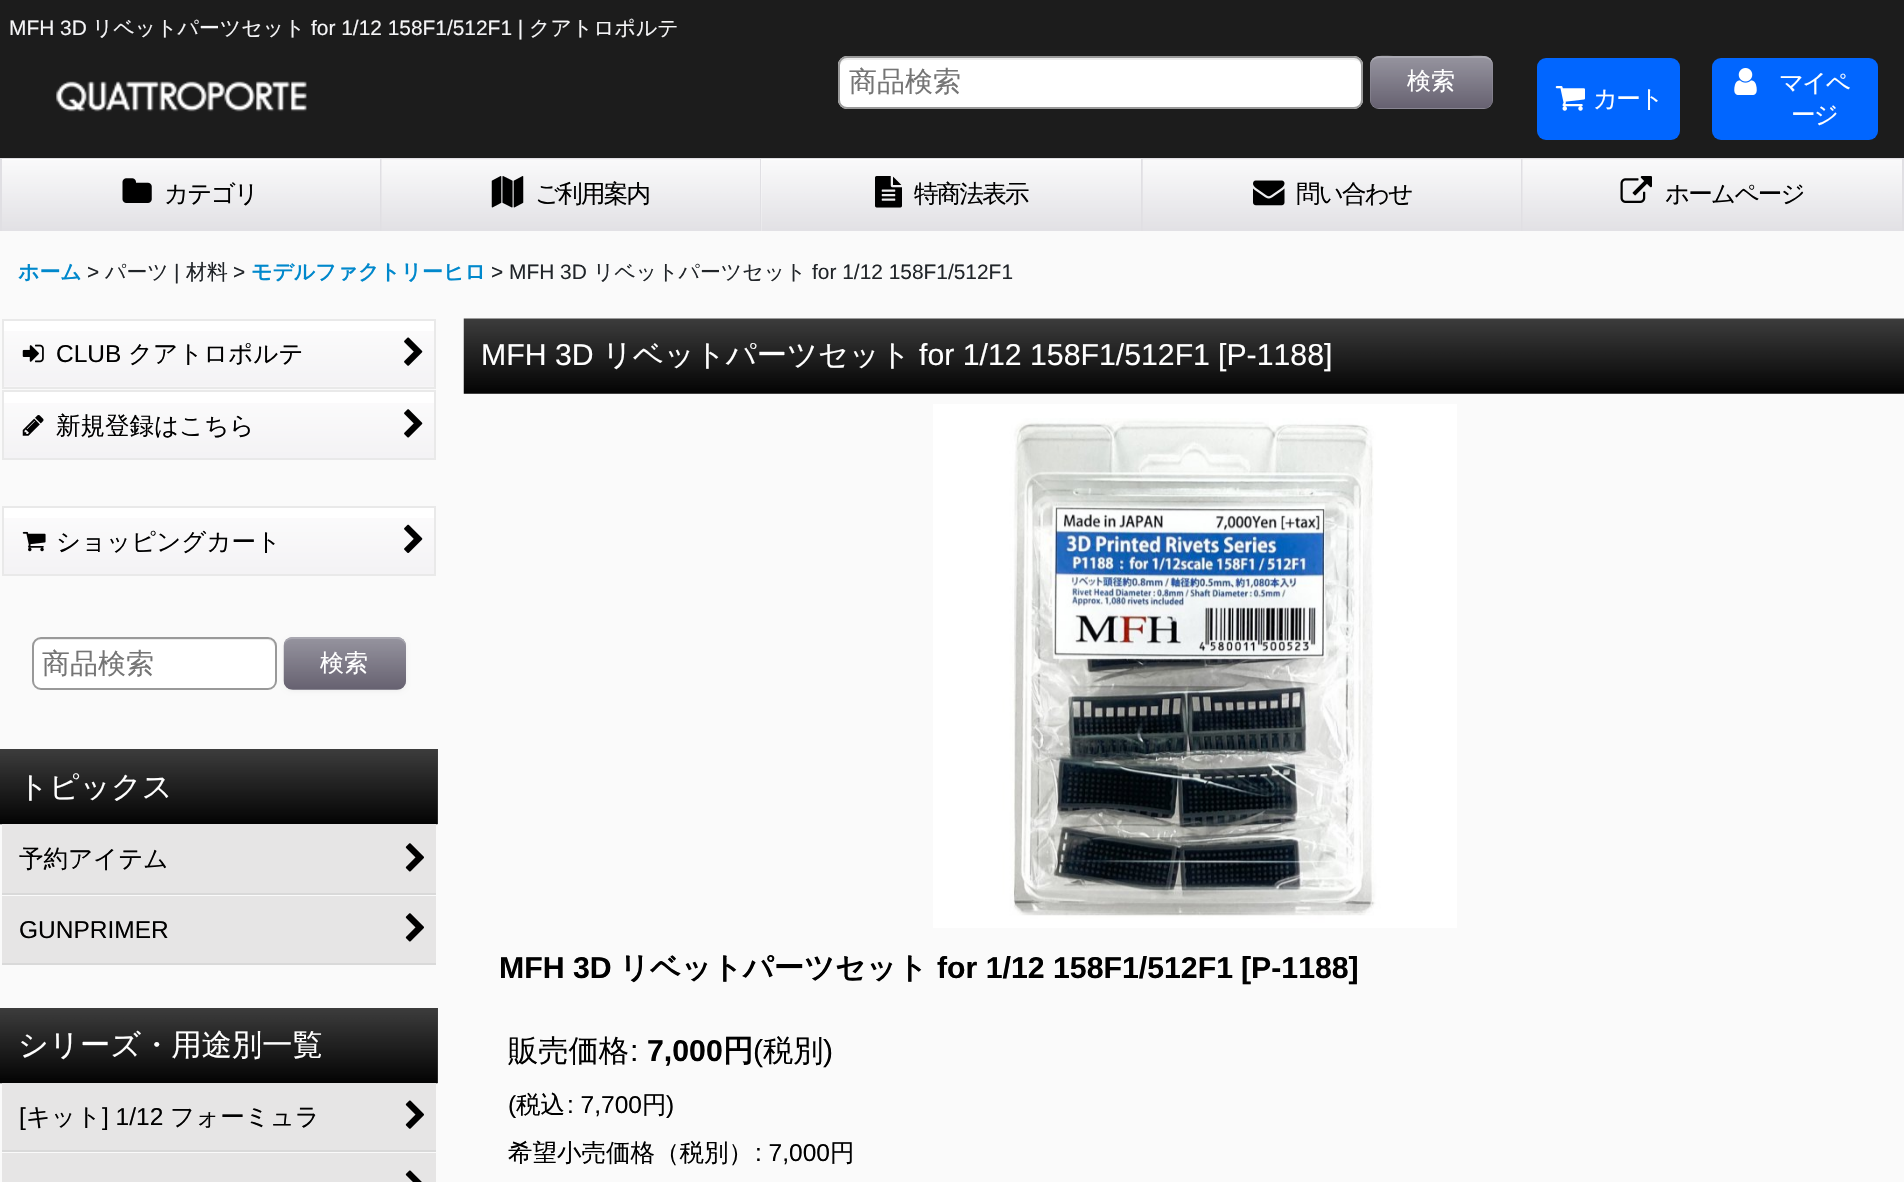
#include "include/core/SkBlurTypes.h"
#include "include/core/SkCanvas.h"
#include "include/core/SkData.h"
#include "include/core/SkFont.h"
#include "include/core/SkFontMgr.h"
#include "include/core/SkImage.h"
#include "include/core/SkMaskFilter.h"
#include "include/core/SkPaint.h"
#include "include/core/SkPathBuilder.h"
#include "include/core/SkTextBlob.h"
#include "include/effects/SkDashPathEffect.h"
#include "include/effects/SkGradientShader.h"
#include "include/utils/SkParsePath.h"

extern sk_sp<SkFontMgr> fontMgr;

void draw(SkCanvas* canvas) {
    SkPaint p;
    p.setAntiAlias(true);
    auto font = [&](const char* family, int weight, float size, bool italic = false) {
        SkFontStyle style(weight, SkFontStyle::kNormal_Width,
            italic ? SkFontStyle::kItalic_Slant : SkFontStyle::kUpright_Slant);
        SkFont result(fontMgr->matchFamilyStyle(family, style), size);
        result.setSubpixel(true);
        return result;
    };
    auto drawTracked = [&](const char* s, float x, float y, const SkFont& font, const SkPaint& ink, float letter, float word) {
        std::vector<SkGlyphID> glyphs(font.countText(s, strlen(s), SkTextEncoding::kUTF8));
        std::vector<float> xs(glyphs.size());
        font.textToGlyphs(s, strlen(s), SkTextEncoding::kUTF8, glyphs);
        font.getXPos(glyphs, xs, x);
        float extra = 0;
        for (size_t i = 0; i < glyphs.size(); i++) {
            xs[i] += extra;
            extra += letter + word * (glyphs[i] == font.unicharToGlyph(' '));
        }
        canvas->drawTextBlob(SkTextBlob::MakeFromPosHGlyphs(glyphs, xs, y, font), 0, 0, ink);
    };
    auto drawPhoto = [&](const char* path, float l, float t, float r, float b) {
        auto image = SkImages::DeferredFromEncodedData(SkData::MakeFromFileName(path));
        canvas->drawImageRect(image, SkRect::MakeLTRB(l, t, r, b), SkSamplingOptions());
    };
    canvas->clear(0xFFFAFAFA);
    p.setColor(0xFF1C1C1C);
    canvas->drawRect(SkRect::MakeLTRB(0, 0, 1904, 158), p);
    auto font1 = font("Liberation Sans", 400, 20.9f);
    p.setColor(0xFFF5F5F7);
    canvas->drawString("MFH 3D", 9, 35, font1, p);
    auto font2 = font("WenQuanYi Zen Hei", 500, 20.9f);
    canvas->drawString("リベットパーツセット", 92, 35, font2, p);
    canvas->drawString("for 1/12 158F1/512F1 |", 311, 35, font1, p);
    canvas->drawString("クアトロポルテ", 529, 35, font2, p);
    p.setColor(0xFFFFFFFF);
    canvas->drawRoundRect(SkRect::MakeLTRB(838, 56, 1363, 109), 9, 9, p);
    p.setColor(0xFFECECEC);
    canvas->drawPath(SkPathBuilder().moveTo(847, 60).lineTo(1354, 60).cubicTo(1358, 60, 1362, 63, 1362, 66).cubicTo(1362, 62, 1360, 58, 1355, 58).lineTo(847, 58).cubicTo(842, 58, 840, 62, 840, 66).cubicTo(840, 63, 843, 60, 847, 60).close().detach(), p);
    p.setStyle(SkPaint::kStroke_Style);
    p.setStrokeWidth(2);
    p.setColor(0xFF999999);
    canvas->drawRoundRect(SkRect::MakeLTRB(839, 57, 1362, 108), 8, 8, p);
    auto font3 = font("WenQuanYi Zen Hei", 500, 28);
    p.setStyle(SkPaint::kFill_Style);
    p.setColor(0xFF757575);
    canvas->drawString("商品検索", 849, 91, font3, p);
    p.setColor(0xFF94929D);
    canvas->drawRoundRect(SkRect::MakeLTRB(1370, 56, 1493, 109), 9, 9, p);
    drawPhoto("media/1.png", 1370, 56, 1493, 109);
    p.setColor(0x33FFFFFF);
    canvas->drawPath(SkPathBuilder().moveTo(1379, 58).lineTo(1484, 58).cubicTo(1489, 58, 1493, 62, 1493, 66).cubicTo(1493, 52, 1475, 56, 1466, 56).lineTo(1396, 56).cubicTo(1388, 56, 1370, 52, 1370, 66).cubicTo(1370, 62, 1374, 58, 1379, 58).close().detach(), p);
    auto font4 = font("WenQuanYi Zen Hei", 500, 24);
    p.setColor(0xFFFFFFFF);
    canvas->drawString("検索", 1407, 89, font4, p);
    drawPhoto("media/2.png", 56, 81, 307, 112);
    p.setColor(0xFF0166FF);
    canvas->drawRoundRect(SkRect::MakeLTRB(1537, 58, 1680, 140), 9, 9, p);
    drawPhoto("media/3.png", 1555, 86, 1585, 111);
    auto font5 = font("WenQuanYi Zen Hei", 500, 24.5f);
    p.setColor(0xFFFFFFFF);
    drawTracked("カート", 1593, 107, font5, p, -1.75f, 0);
    p.setColor(0xFF0166FF);
    canvas->drawRoundRect(SkRect::MakeLTRB(1712, 58, 1878, 140), 9, 9, p);
    drawPhoto("media/4.png", 1734, 68, 1757, 95);
    p.setColor(0xFFFFFFFF);
    drawTracked("マイペ", 1779, 91, font5, p, -1.75f, 0);
    drawTracked("ージ", 1791, 123, font5, p, -1.75f, 0);
    p.setColor(0xFFE0DFE3);
    canvas->drawRect(SkRect::MakeLTRB(0, 158, 1904, 160), p);
    p.setColor(0xFFFFFFFF);
    canvas->drawRect(SkRect::MakeLTRB(2, 159, 380, 160), p);
    drawPhoto("media/5.png", 2, 160, 380, 231);
    p.setColor(0xFFE0DFE3);
    canvas->drawRect(SkRect::MakeLTRB(380, 159, 382, 231), p);
    canvas->drawRect(SkRect::MakeLTRB(0, 159, 2, 231), p);
    drawPhoto("media/6.png", 122, 178, 152, 203);
    p.setColor(0xFF000000);
    drawTracked("カテゴリ", 164, 202, font5, p, -1.75f, 0);
    drawPhoto("media/7.png", 381, 159, 760, 231);
    p.setColor(0xFFE0DFE3);
    canvas->drawRect(SkRect::MakeLTRB(760, 159, 761, 231), p);
    drawPhoto("media/8.png", 491, 176, 524, 208);
    p.setColor(0xFF000000);
    drawTracked("ご利用案内", 535, 202, font5, p, -1.75f, 0);
    p.setColor(0xFFFFFFFF);
    canvas->drawRect(SkRect::MakeLTRB(761, 159, 1141, 231), p);
    drawPhoto("media/9.png", 761, 160, 1141, 231);
    p.setColor(0xFFE0DFE3);
    canvas->drawRect(SkRect::MakeLTRB(1141, 159, 1143, 231), p);
    drawPhoto("media/10.png", 875, 176, 902, 208);
    p.setColor(0xFF000000);
    drawTracked("特商法表示", 914, 202, font5, p, -1.75f, 0);
    drawPhoto("media/11.png", 1142, 159, 1521, 231);
    p.setColor(0xFFE0DFE3);
    canvas->drawRect(SkRect::MakeLTRB(1521, 159, 1523, 231), p);
    drawPhoto("media/12.png", 1253, 180, 1285, 206);
    p.setColor(0xFF000000);
    drawTracked("問い合わせ", 1296, 202, font5, p, -1.75f, 0);
    drawPhoto("media/13.png", 1522, 159, 1902, 231);
    p.setColor(0xFFE0DFE3);
    canvas->drawRect(SkRect::MakeLTRB(1902, 159, 1904, 231), p);
    drawPhoto("media/14.png", 1620, 176, 1652, 203);
    p.setColor(0xFF000000);
    drawTracked("ホームページ", 1665, 202, font5, p, -1.75f, 0);
    auto font6 = font("WenQuanYi Zen Hei", 700, 20.9f);
    p.setColor(0xFF0088CC);
    canvas->drawString("ホーム", 18, 279, font6, p);
    p.setColor(0xFF212529);
    canvas->drawString(">", 87, 279, font1, p);
    canvas->drawString("パーツ", 105, 279, font2, p);
    canvas->drawString("|", 174, 279, font1, p);
    canvas->drawString("材料", 186, 279, font2, p);
    canvas->drawString(">", 233, 279, font1, p);
    p.setColor(0xFF0088CC);
    canvas->drawString("モデルファクトリーヒロ", 251, 279, font6, p);
    p.setColor(0xFF212529);
    canvas->drawString("> MFH 3D", 491, 279, font1, p);
    canvas->drawString("リベットパーツセット", 593, 279, font2, p);
    canvas->drawString("for 1/12 158F1/512F1", 812, 279, font1, p);
    p.setColor(0xFFFFFFFF);
    canvas->drawRect(SkRect::MakeLTRB(4, 321, 434, 387), p);
    drawPhoto("media/15.png", 4, 331, 434, 387);
    p.setStyle(SkPaint::kStroke_Style);
    p.setColor(0xFFE9E9E9);
    canvas->drawRect(SkRect::MakeLTRB(3, 320, 435, 388), p);
    drawPhoto("media/16.png", 22, 344, 44, 363);
    auto font7 = font("Liberation Sans", 400, 24.5f);
    p.setStyle(SkPaint::kFill_Style);
    p.setColor(0xFF000000);
    canvas->drawString("CLUB", 56, 362, font7, p);
    canvas->drawString("クアトロポルテ", 128, 362, font5, p);
    drawPhoto("media/17.png", 404, 337, 423, 366);
    p.setColor(0xFFFFFFFF);
    canvas->drawRect(SkRect::MakeLTRB(4, 392, 434, 403), p);
    drawPhoto("media/18.png", 4, 403, 434, 458);
    p.setStyle(SkPaint::kStroke_Style);
    p.setColor(0xFFE9E9E9);
    canvas->drawRect(SkRect::MakeLTRB(3, 391, 435, 459), p);
    drawPhoto("media/19.png", 22, 415, 44, 436);
    p.setStyle(SkPaint::kFill_Style);
    p.setColor(0xFF000000);
    canvas->drawString("新規登録はこちら", 56, 434, font5, p);
    drawPhoto("media/20.png", 404, 409, 423, 438);
    p.setColor(0xFFFFFFFF);
    canvas->drawRect(SkRect::MakeLTRB(4, 508, 434, 518), p);
    drawPhoto("media/21.png", 4, 518, 434, 574);
    p.setStyle(SkPaint::kStroke_Style);
    p.setColor(0xFFE9E9E9);
    canvas->drawRect(SkRect::MakeLTRB(3, 507, 435, 575), p);
    drawPhoto("media/22.png", 22, 531, 46, 552);
    p.setStyle(SkPaint::kFill_Style);
    p.setColor(0xFF000000);
    canvas->drawString("ショッピングカート", 56, 550, font5, p);
    drawPhoto("media/23.png", 404, 524, 423, 553);
    p.setColor(0xFFFFFFFF);
    canvas->drawRoundRect(SkRect::MakeLTRB(32, 637, 277, 690), 9, 9, p);
    p.setColor(0xFFECECEC);
    canvas->drawPath(SkPathBuilder().moveTo(40, 640).lineTo(268, 640).cubicTo(272, 640, 275, 644, 275, 648).lineTo(275, 646).cubicTo(275, 642, 272, 639, 268, 639).lineTo(40, 639).cubicTo(36, 639, 33, 642, 33, 646).lineTo(33, 648).cubicTo(33, 644, 36, 640, 40, 640).close().detach(), p);
    p.setStyle(SkPaint::kStroke_Style);
    p.setColor(0xFF999999);
    canvas->drawRoundRect(SkRect::MakeLTRB(33, 638, 276, 689), 8, 8, p);
    p.setStyle(SkPaint::kFill_Style);
    p.setColor(0xFF757575);
    canvas->drawString("商品検索", 42, 673, font3, p);
    p.setColor(0x0D000000);
    p.setMaskFilter(SkMaskFilter::MakeBlur(kNormal_SkBlurStyle, 2));
    canvas->drawRoundRect(SkRect::MakeLTRB(284, 639, 406, 691), 9, 9, p);
    p.setMaskFilter(nullptr);
    p.setColor(0xFF94929D);
    canvas->drawRoundRect(SkRect::MakeLTRB(284, 637, 406, 690), 9, 9, p);
    drawPhoto("media/24.png", 283, 637, 406, 690);
    p.setColor(0x33FFFFFF);
    canvas->drawPath(SkPathBuilder().moveTo(292, 639).lineTo(397, 639).cubicTo(402, 639, 406, 643, 406, 648).cubicTo(406, 633, 391, 637, 380, 637).lineTo(310, 637).cubicTo(299, 637, 284, 633, 284, 648).cubicTo(284, 643, 287, 639, 292, 639).close().detach(), p);
    p.setColor(0xFFFFFFFF);
    canvas->drawString("検索", 320, 671, font4, p);
    p.setColor(0xFF444444);
    canvas->drawRect(SkRect::MakeLTRB(437, 749, 438, 824), p);
    drawPhoto("media/25.png", 0, 749, 438, 825);
    auto font8 = font("WenQuanYi Zen Hei", 500, 30.25f);
    p.setColor(0xFFFFFFFF);
    canvas->drawString("トピックス", 18, 797, font8, p);
    p.setColor(0xFFE6E5E5);
    canvas->drawRect(SkRect::MakeLTRB(2, 824, 436, 893), p);
    p.setColor(0xFFD9D9D9);
    canvas->drawRect(SkRect::MakeLTRB(2, 893, 436, 895), p);
    p.setColor(0xFF000000);
    canvas->drawString("予約アイテム", 19, 867, font5, p);
    drawPhoto("media/26.png", 405, 843, 424, 872);
    p.setColor(0xFFE6E5E5);
    canvas->drawRect(SkRect::MakeLTRB(2, 896, 436, 963), p);
    p.setColor(0xFFD9D9D9);
    canvas->drawRect(SkRect::MakeLTRB(2, 963, 436, 965), p);
    p.setColor(0xFF000000);
    canvas->drawString("GUNPRIMER", 19, 938, font7, p);
    drawPhoto("media/27.png", 405, 913, 424, 942);
    p.setColor(0xFF444444);
    canvas->drawRect(SkRect::MakeLTRB(437, 1008, 438, 1083), p);
    drawPhoto("media/28.png", 0, 1008, 438, 1084);
    p.setColor(0xFFFFFFFF);
    canvas->drawString("シリーズ・用途別一覧", 18, 1055, font8, p);
    p.setColor(0xFFE6E5E5);
    canvas->drawRect(SkRect::MakeLTRB(2, 1083, 436, 1150), p);
    p.setColor(0xFFD9D9D9);
    canvas->drawRect(SkRect::MakeLTRB(2, 1150, 436, 1152), p);
    p.setColor(0xFF000000);
    canvas->drawString("[", 19, 1125, font7, p);
    canvas->drawString("キット", 26, 1125, font5, p);
    canvas->drawString("] 1/12", 102, 1125, font7, p);
    canvas->drawString("フォーミュラ", 170, 1125, font5, p);
    drawPhoto("media/29.png", 405, 1100, 424, 1129);
    p.setColor(0xFFE6E5E5);
    canvas->drawRect(SkRect::MakeLTRB(2, 1153, 436, 1182), p);
    drawPhoto("media/30.png", 405, 1170, 422, 1182);
    drawPhoto("media/31.png", 463, 318, 1904, 394);
    auto font9 = font("Liberation Sans", 400, 30.25f);
    p.setColor(0xFFFFFFFF);
    canvas->drawString("MFH 3D", 481, 365, font9, p);
    canvas->drawString("リベットパーツセット", 602, 365, font8, p);
    canvas->drawString("for 1/12 158F1/512F1", 919, 365, font9, p);
    canvas->drawString("[P-1188]", 1218, 365, font9, p);
    drawPhoto("media/32.png", 933, 404, 1457, 928);
    auto font10 = font("Liberation Sans", 700, 30.25f);
    p.setColor(0xFF000000);
    canvas->drawString("MFH 3D", 499, 978, font10, p);
    auto font11 = font("WenQuanYi Zen Hei", 700, 30.25f);
    canvas->drawString("リベットパーツセット", 619, 978, font11, p);
    canvas->drawString("for 1/12 158F1/512F1", 937, 978, font10, p);
    canvas->drawString("[P-1188]", 1241, 978, font10, p);
    canvas->drawString("販売価格", 508, 1061, font8, p);
    canvas->drawString(":", 630, 1061, font9, p);
    canvas->drawString("7,000", 647, 1061, font10, p);
    canvas->drawString("円", 723, 1061, font11, p);
    canvas->drawString("(", 753, 1061, font9, p);
    canvas->drawString("税別", 763, 1061, font8, p);
    canvas->drawString(")", 823, 1061, font9, p);
    canvas->drawString("(", 508, 1113, font7, p);
    canvas->drawString("税込", 516, 1113, font5, p);
    canvas->drawString(": 7,700", 567, 1113, font7, p);
    canvas->drawString("円", 642, 1113, font5, p);
    canvas->drawString(")", 666, 1113, font7, p);
    canvas->drawString("希望小売価格（税別）", 508, 1161, font5, p);
    canvas->drawString(": 7,000", 755, 1161, font7, p);
    canvas->drawString("円", 830, 1161, font5, p);
}
